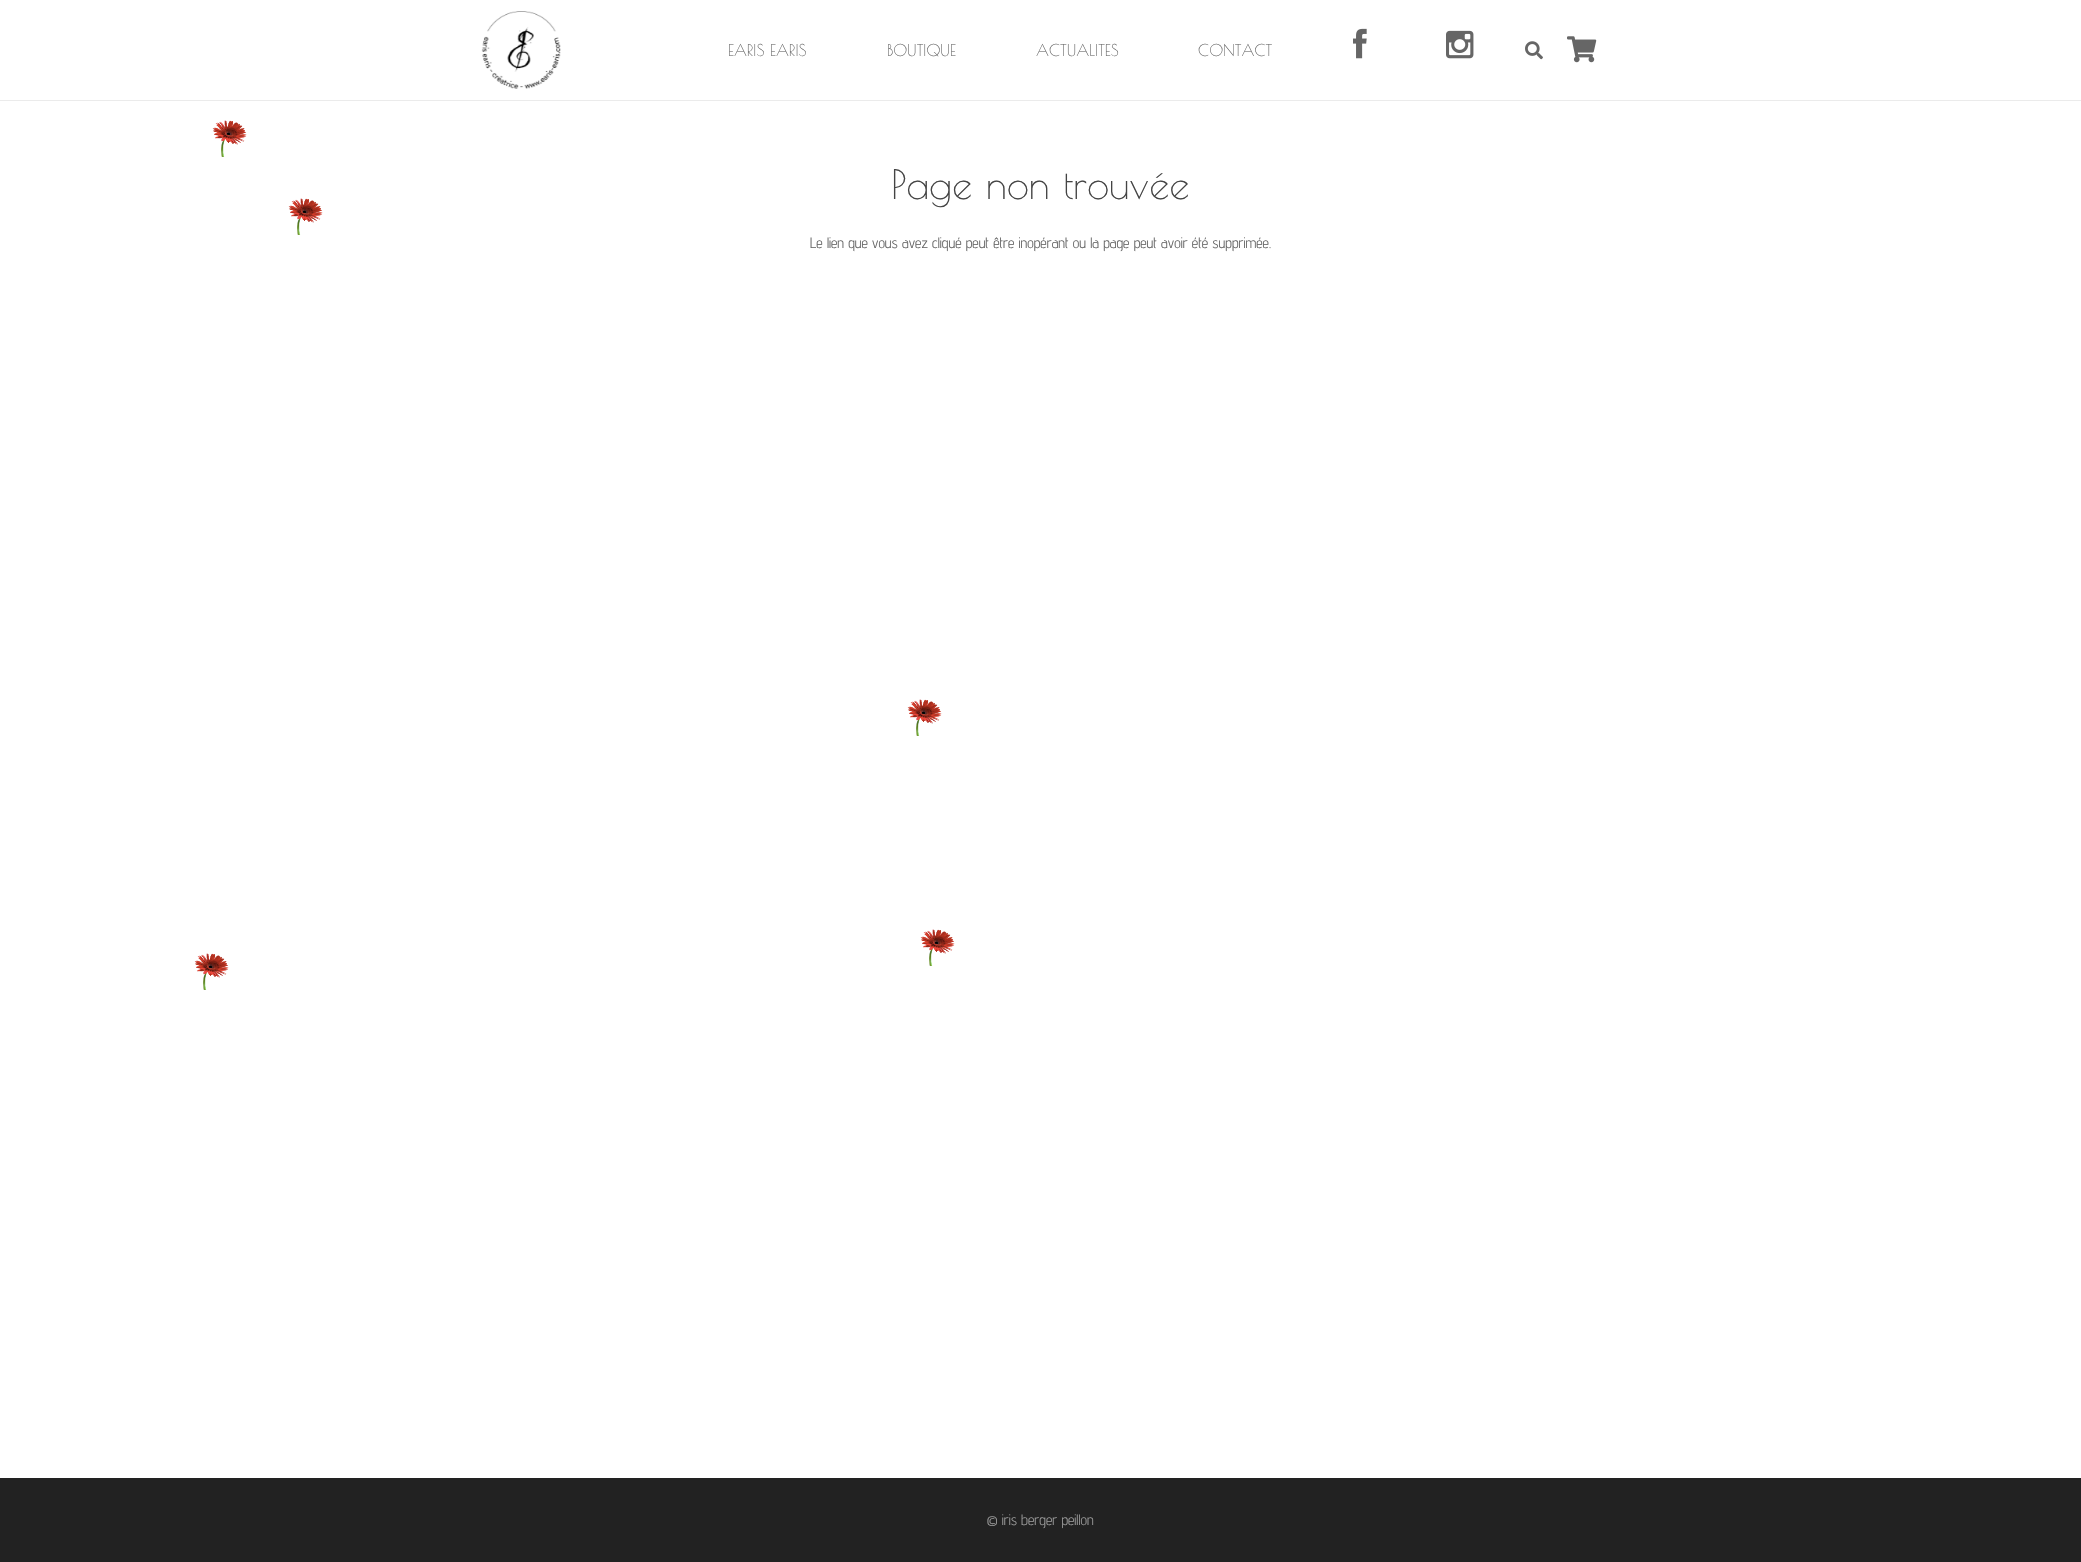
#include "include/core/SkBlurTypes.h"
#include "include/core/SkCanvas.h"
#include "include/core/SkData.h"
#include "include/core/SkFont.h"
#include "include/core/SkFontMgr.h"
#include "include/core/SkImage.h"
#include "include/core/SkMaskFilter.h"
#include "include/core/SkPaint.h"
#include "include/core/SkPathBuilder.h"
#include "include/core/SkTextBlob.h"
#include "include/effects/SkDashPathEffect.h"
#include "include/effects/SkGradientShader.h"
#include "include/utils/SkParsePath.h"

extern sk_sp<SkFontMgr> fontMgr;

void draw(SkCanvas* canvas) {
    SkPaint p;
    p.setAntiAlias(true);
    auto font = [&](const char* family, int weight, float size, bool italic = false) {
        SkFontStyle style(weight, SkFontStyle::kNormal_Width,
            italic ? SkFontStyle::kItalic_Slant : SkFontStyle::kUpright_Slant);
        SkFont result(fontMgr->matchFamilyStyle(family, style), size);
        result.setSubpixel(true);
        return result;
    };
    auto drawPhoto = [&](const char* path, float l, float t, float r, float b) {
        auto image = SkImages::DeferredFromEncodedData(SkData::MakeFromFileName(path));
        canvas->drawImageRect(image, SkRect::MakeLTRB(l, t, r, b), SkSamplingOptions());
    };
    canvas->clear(0xFFFFFFFF);
    drawPhoto("media/1.png", 212, 120, 247, 157);
    p.setColor(0xFFEBEBEB);
    canvas->drawRect(SkRect::MakeLTRB(0, 100, 2081, 101), p);
    drawPhoto("media/2.png", 481, 11, 561, 89);
    auto font1 = font("Poiret One", 400, 16);
    p.setColor(0xFF666666);
    {
        const struct { const char* s; float x, y; } items[] = {
            {"EARIS EARIS", 728, 56},
            {"BOUTIQUE", 887, 56},
            {"ACTUALITES", 1036, 56},
            {"CONTACT", 1198, 56},
        };
        for (auto [s, x, y] : items) {
            canvas->drawString(s, x, y, font1, p);
        }
    }
    drawPhoto("media/3.png", 1353, 28, 1367, 59);
    drawPhoto("media/4.png", 1446, 30, 1474, 59);
    drawPhoto("media/5.png", 1525, 41, 1543, 60);
    drawPhoto("media/6.png", 1567, 36, 1597, 63);
    auto font2 = font("Poiret One", 400, 40);
    p.setColor(0xFF444444);
    canvas->drawString("Page non trouvée", 891, 199, font2, p);
    auto font3 = font("Advent Pro", 400, 15);
    p.setColor(0xFF666666);
    canvas->drawString("Le lien que vous avez cliqué peut être inopérant ou la page peut avoir été supprimée.", 810, 248, font3, p);
    drawPhoto("media/1.png", 288, 198, 323, 235);
    drawPhoto("media/1.png", 907, 699, 942, 736);
    drawPhoto("media/1.png", 920, 929, 955, 966);
    drawPhoto("media/1.png", 194, 953, 229, 990);
    p.setColor(0xFF222222);
    canvas->drawRect(SkRect::MakeLTRB(0, 1478, 2081, 1562), p);
    p.setColor(0xFF999999);
    canvas->drawString("© iris berger peillon", 987, 1525, font3, p);
}
